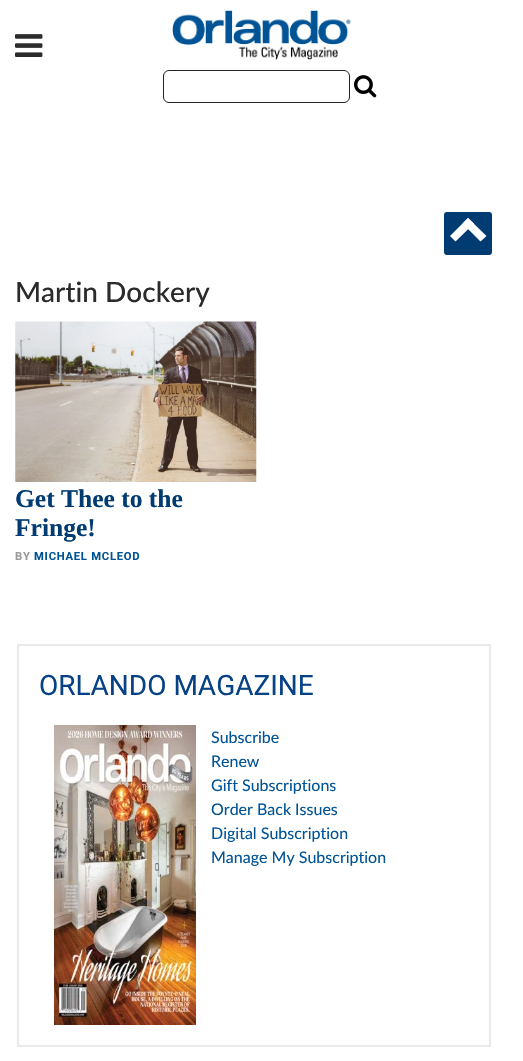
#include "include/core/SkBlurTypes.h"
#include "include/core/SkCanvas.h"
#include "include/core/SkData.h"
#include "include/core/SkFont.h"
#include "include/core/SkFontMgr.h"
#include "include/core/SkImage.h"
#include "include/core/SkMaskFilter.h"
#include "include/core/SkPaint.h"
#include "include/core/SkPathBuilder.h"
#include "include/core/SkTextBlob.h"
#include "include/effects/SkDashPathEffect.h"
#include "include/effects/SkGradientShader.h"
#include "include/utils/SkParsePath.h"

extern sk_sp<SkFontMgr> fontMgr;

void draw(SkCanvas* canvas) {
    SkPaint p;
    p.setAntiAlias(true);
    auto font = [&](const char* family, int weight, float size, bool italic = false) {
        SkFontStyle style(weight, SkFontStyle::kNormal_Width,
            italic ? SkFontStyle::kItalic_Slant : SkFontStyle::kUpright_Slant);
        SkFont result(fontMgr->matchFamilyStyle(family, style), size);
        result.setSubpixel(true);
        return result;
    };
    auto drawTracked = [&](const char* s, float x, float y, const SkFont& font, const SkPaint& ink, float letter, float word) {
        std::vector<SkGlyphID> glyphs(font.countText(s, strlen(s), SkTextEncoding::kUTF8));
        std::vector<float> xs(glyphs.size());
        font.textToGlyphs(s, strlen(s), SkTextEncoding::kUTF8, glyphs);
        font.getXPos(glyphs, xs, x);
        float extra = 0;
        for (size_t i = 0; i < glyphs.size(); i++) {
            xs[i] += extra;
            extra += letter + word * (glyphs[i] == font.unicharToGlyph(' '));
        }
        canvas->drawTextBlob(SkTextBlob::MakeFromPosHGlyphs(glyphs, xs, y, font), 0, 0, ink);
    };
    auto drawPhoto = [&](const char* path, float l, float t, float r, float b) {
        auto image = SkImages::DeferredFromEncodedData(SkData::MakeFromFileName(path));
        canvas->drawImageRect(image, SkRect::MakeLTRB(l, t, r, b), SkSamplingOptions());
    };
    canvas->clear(0xFFFFFFFF);
    drawPhoto("media/1.png", 15, 34, 43, 57);
    drawPhoto("media/2.png", 172, 10, 351, 60);
    p.setStyle(SkPaint::kStroke_Style);
    p.setStrokeWidth(1);
    p.setColor(0xFF222222);
    canvas->drawRoundRect(SkRect::MakeLTRB(163.5f, 70.5f, 349.5f, 102.5f), 5.5f, 5.5f, p);
    drawPhoto("media/3.png", 354, 75, 377, 98);
    auto font1 = font("Lato", 500, 28);
    p.setStyle(SkPaint::kFill_Style);
    p.setColor(0xFF2B2B2B);
    canvas->drawString("Martin Dockery", 15, 302, font1, p);
    drawPhoto("media/4.png", 15, 321, 257, 482);
    auto font2 = font("Liberation Serif", 700, 25.5f);
    p.setColor(0xFF003B72);
    canvas->drawString("Get Thee to the", 15, 507, font2, p);
    canvas->drawString("Fringe!", 15, 536, font2, p);
    auto font3 = font("Roboto", 700, 11.25f);
    p.setColor(0xFF999999);
    drawTracked("BY", 15, 560, font3, p, 0.75f, 0);
    p.setColor(0xFF005395);
    drawTracked("MICHAEL MCLEOD", 34, 560, font3, p, 0.75f, 0);
    p.setColor(0xFF003B72);
    canvas->drawRoundRect(SkRect::MakeLTRB(444, 212, 492, 255), 3, 3, p);
    p.setColor(0xFFFFFFFF);
    canvas->drawPath(SkPathBuilder().moveTo(450, 236).lineTo(468, 218).lineTo(474, 223.5f).lineTo(455.5f, 241.5f).close().detach(), p);
    canvas->drawPath(SkPathBuilder().moveTo(462.5f, 223.5f).lineTo(468, 218).lineTo(486.5f, 236).lineTo(480.5f, 241.5f).close().detach(), p);
    p.setStyle(SkPaint::kStroke_Style);
    p.setStrokeWidth(2);
    p.setColor(0xFFEAEAEA);
    canvas->drawRect(SkRect::MakeLTRB(18, 645, 490, 1046), p);
    auto font4 = font("Roboto", 400, 28);
    p.setStyle(SkPaint::kFill_Style);
    p.setColor(0xFF064285);
    canvas->drawString("ORLANDO MAGAZINE", 39, 695, font4, p);
    drawPhoto("media/5.png", 54, 725, 196, 1025);
    auto font5 = font("Lato", 400, 16);
    p.setColor(0xFF005395);
    {
        const struct { const char* s; float x, y; } items[] = {
            {"Subscribe", 211, 743},
            {"Renew", 211, 767},
            {"Gift Subscriptions", 211, 791},
            {"Order Back Issues", 211, 815},
            {"Digital Subscription", 211, 839},
            {"Manage My Subscription", 211, 863},
        };
        for (auto [s, x, y] : items) {
            canvas->drawString(s, x, y, font5, p);
        }
    }
}
